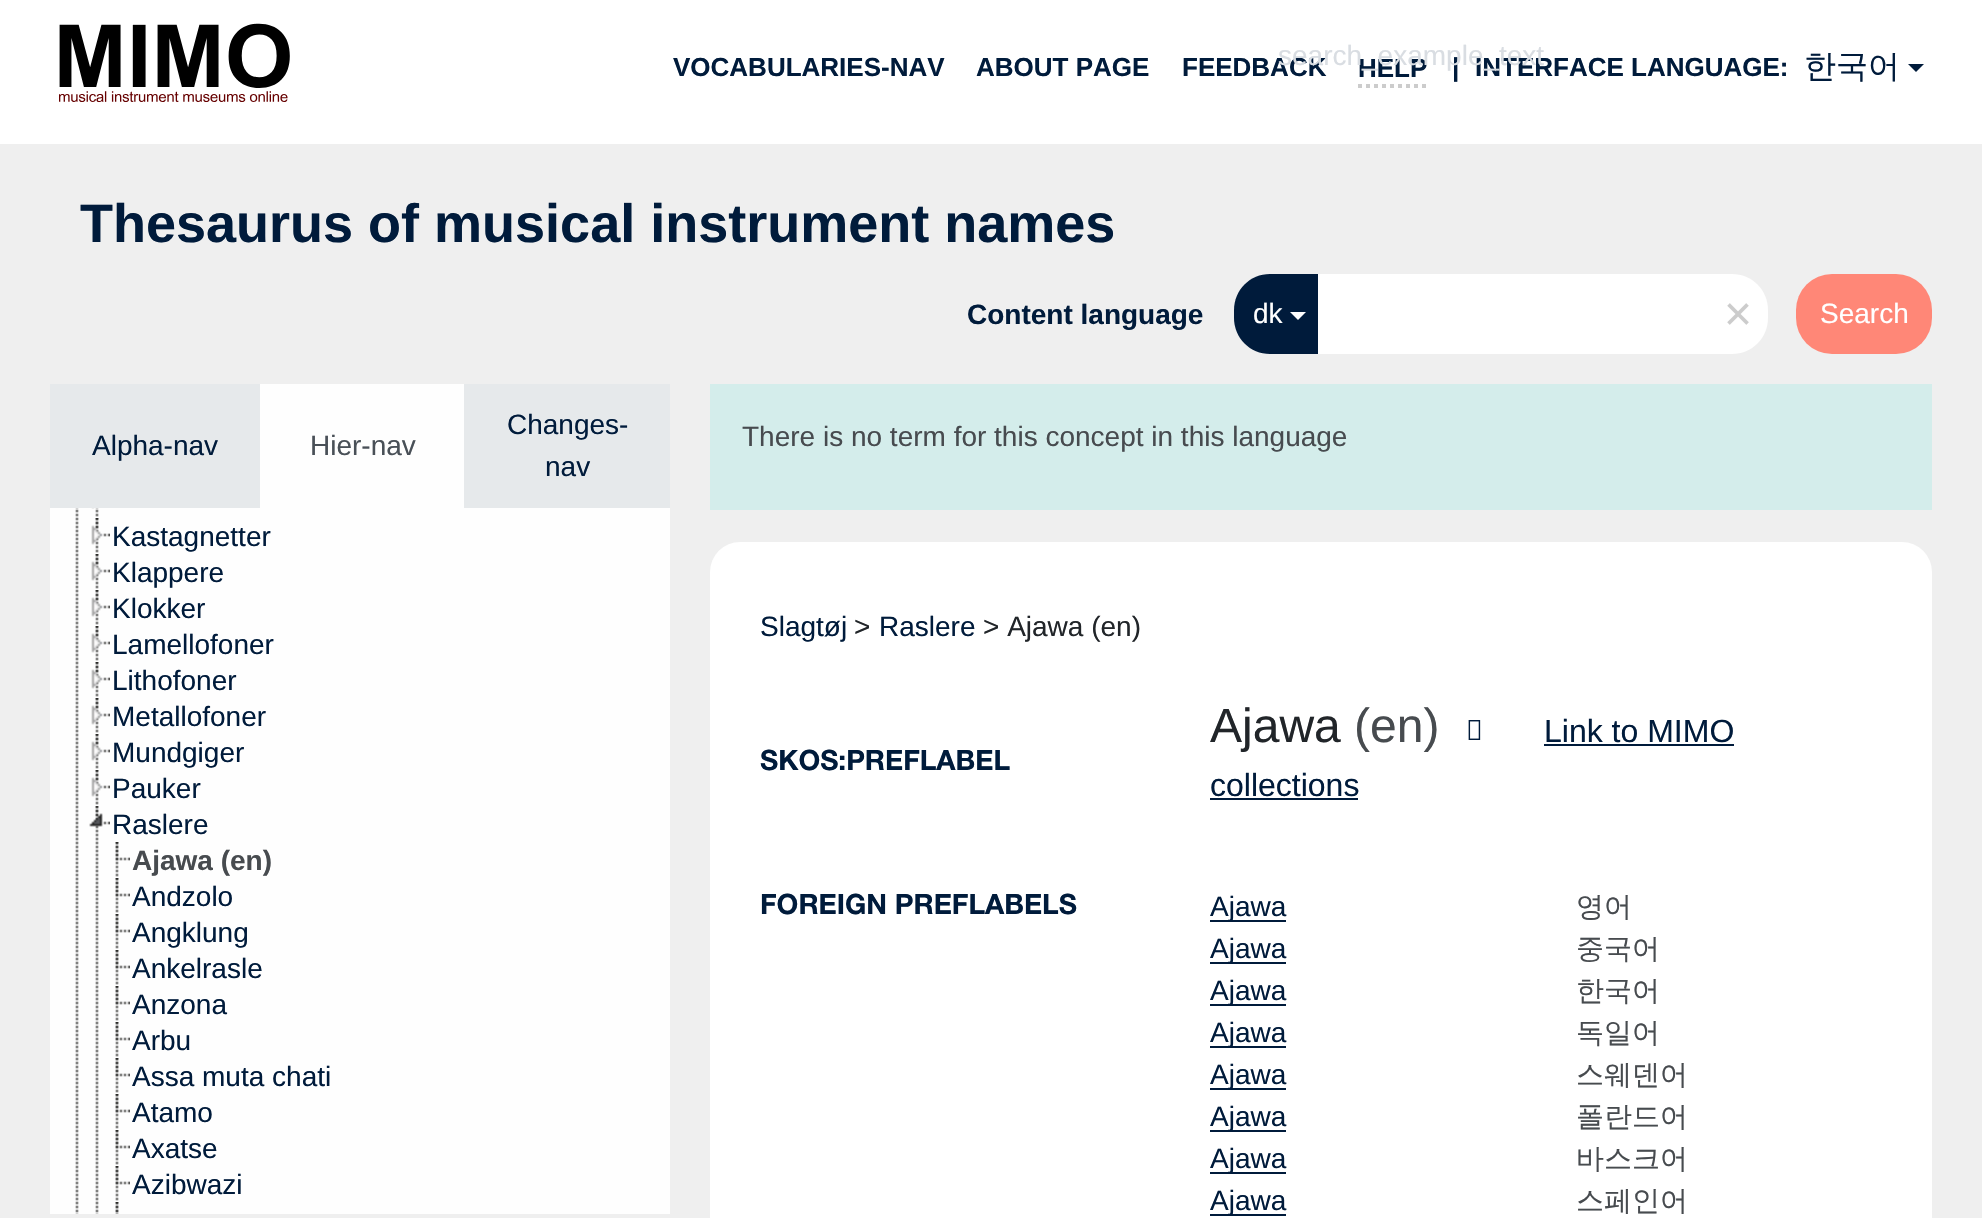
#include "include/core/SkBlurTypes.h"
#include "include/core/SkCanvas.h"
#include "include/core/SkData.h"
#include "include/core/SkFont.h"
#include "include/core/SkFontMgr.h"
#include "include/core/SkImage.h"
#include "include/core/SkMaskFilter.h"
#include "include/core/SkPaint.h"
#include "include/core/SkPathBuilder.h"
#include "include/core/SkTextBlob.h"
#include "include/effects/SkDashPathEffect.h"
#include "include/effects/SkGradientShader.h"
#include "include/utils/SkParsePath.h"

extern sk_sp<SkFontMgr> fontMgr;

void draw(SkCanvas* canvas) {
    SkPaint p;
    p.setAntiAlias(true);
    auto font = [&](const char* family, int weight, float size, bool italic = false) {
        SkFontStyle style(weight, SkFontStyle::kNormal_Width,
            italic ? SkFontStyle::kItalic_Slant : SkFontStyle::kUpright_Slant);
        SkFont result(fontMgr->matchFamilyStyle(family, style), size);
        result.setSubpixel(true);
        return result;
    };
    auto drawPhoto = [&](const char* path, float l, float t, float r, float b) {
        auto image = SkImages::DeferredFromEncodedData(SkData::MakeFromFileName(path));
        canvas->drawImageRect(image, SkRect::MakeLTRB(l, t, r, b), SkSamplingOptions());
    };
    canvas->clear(0xFFEFEFEF);
    p.setColor(0xFFFFFFFF);
    canvas->drawRect(SkRect::MakeLTRB(0, 0, 1982, 144), p);
    drawPhoto("media/1.png", 59, 23, 290, 102);
    auto font1 = font("Liberation Sans", 700, 26);
    p.setColor(0xFF001B3B);
    {
        const struct { const char* s; float x, y; } items[] = {
            {"VOCABULARIES-NAV", 673, 76},
            {"ABOUT PAGE", 976, 76},
            {"FEEDBACK", 1182, 76},
            {"HELP", 1358, 77},
            {"|", 1452, 76},
            {"INTERFACE LANGUAGE:", 1475, 76},
        };
        for (auto [s, x, y] : items) {
            canvas->drawString(s, x, y, font1, p);
        }
    }
    auto font2 = font("Liberation Sans", 400, 28);
    p.setColor(0xFFD9DDE2);
    canvas->drawString("search_example_text", 1278, 65, font2, p);
    p.setStyle(SkPaint::kStroke_Style);
    p.setStrokeWidth(4);
    p.setColor(0xFFCCCCCC);
    p.setPathEffect(SkDashPathEffect::Make({{4, 4}}, 0));
    canvas->drawPath(SkPathBuilder().moveTo(1358, 86).lineTo(1428, 86).detach(), p);
    p.setPathEffect(nullptr);
    auto font3 = font("WenQuanYi Zen Hei", 500, 32);
    p.setStyle(SkPaint::kFill_Style);
    p.setColor(0xFF001B3B);
    canvas->drawString("한국어", 1804, 77, font3, p);
    canvas->drawPath(SkPathBuilder().moveTo(1908, 64).lineTo(1924, 64).lineTo(1916, 72).close().detach(), p);
    auto font4 = font("Liberation Sans", 700, 54);
    canvas->drawString("Thesaurus of musical instrument names", 80, 242, font4, p);
    auto font5 = font("Liberation Sans", 700, 28);
    canvas->drawString("Content language", 967, 324, font5, p);
    p.setColor(0xFFFFFFFF);
    canvas->drawPath(SkPathBuilder().moveTo(1316, 274).lineTo(1732, 274).cubicTo(1752, 274, 1768, 290, 1768, 310).lineTo(1768, 318).cubicTo(1768, 338, 1752, 354, 1732, 354).lineTo(1316, 354).close().detach(), p);
    p.setColor(0xFF001B3B);
    canvas->drawPath(SkPathBuilder().moveTo(1270, 274).lineTo(1318, 274).lineTo(1318, 354).lineTo(1270, 354).cubicTo(1250, 354, 1234, 338, 1234, 318).lineTo(1234, 310).cubicTo(1234, 290, 1250, 274, 1270, 274).close().detach(), p);
    p.setColor(0xFFFFFFFF);
    canvas->drawString("dk", 1253, 323, font2, p);
    canvas->drawPath(SkPathBuilder().moveTo(1290, 312).lineTo(1306, 312).lineTo(1298, 320).close().detach(), p);
    auto font6 = font("Liberation Sans", 400, 48);
    p.setColor(0xFFCCCCCC);
    canvas->drawString("×", 1724, 330, font6, p);
    p.setColor(0xFFFF8777);
    canvas->drawRoundRect(SkRect::MakeLTRB(1796, 274, 1932, 354), 36, 36, p);
    p.setColor(0xFFFFFFFF);
    canvas->drawString("Search", 1820, 323, font2, p);
    p.setColor(0xFFE6E9EB);
    canvas->drawRect(SkRect::MakeLTRB(50, 384, 260, 508), p);
    p.setColor(0xFF001B3B);
    canvas->drawString("Alpha-nav", 92, 455, font2, p);
    p.setColor(0xFFFEFEFE);
    canvas->drawRect(SkRect::MakeLTRB(260, 384, 464, 508), p);
    p.setColor(0xFF495057);
    canvas->drawString("Hier-nav", 310, 455, font2, p);
    p.setColor(0xFFE6E9EB);
    canvas->drawRect(SkRect::MakeLTRB(464, 384, 670, 508), p);
    p.setColor(0xFF001B3B);
    canvas->drawString("Changes-", 507, 434, font2, p);
    canvas->drawString("nav", 545, 476, font2, p);
    p.setColor(0xFFFEFEFE);
    canvas->drawRect(SkRect::MakeLTRB(50, 508, 670, 1214), p);
    drawPhoto("media/2.png", 75, 508, 79, 1214);
    drawPhoto("media/3.png", 95, 508, 99, 517);
    drawPhoto("media/4.png", 91, 508, 95, 509);
    drawPhoto("media/5.png", 95, 518, 99, 553);
    drawPhoto("media/6.png", 91, 518, 110, 545);
    p.setColor(0xFF001B3B);
    canvas->drawString("Kastagnetter", 112, 546, font2, p);
    drawPhoto("media/5.png", 95, 554, 99, 589);
    drawPhoto("media/6.png", 91, 554, 110, 581);
    canvas->drawString("Klappere", 112, 582, font2, p);
    drawPhoto("media/5.png", 95, 590, 99, 625);
    drawPhoto("media/6.png", 91, 590, 110, 617);
    canvas->drawString("Klokker", 112, 618, font2, p);
    drawPhoto("media/5.png", 95, 626, 99, 661);
    drawPhoto("media/6.png", 91, 626, 110, 653);
    canvas->drawString("Lamellofoner", 112, 654, font2, p);
    drawPhoto("media/5.png", 95, 662, 99, 697);
    drawPhoto("media/6.png", 91, 662, 110, 689);
    canvas->drawString("Lithofoner", 112, 690, font2, p);
    drawPhoto("media/5.png", 95, 698, 99, 733);
    drawPhoto("media/6.png", 91, 698, 110, 725);
    canvas->drawString("Metallofoner", 112, 726, font2, p);
    drawPhoto("media/5.png", 95, 734, 99, 769);
    drawPhoto("media/6.png", 91, 734, 110, 761);
    canvas->drawString("Mundgiger", 112, 762, font2, p);
    drawPhoto("media/5.png", 95, 770, 99, 805);
    drawPhoto("media/6.png", 91, 770, 110, 797);
    canvas->drawString("Pauker", 112, 798, font2, p);
    drawPhoto("media/7.png", 95, 806, 99, 1214);
    drawPhoto("media/8.png", 89, 806, 110, 827);
    canvas->drawString("Raslere", 112, 834, font2, p);
    drawPhoto("media/5.png", 115, 842, 119, 877);
    drawPhoto("media/9.png", 115, 842, 130, 861);
    p.setColor(0xFF474B4F);
    canvas->drawString("Ajawa (en)", 132, 870, font5, p);
    drawPhoto("media/5.png", 115, 878, 119, 913);
    drawPhoto("media/9.png", 115, 878, 130, 897);
    p.setColor(0xFF001B3B);
    canvas->drawString("Andzolo", 132, 906, font2, p);
    drawPhoto("media/5.png", 115, 914, 119, 949);
    drawPhoto("media/9.png", 115, 914, 130, 933);
    canvas->drawString("Angklung", 132, 942, font2, p);
    drawPhoto("media/5.png", 115, 950, 119, 985);
    drawPhoto("media/9.png", 115, 950, 130, 969);
    canvas->drawString("Ankelrasle", 132, 978, font2, p);
    drawPhoto("media/5.png", 115, 986, 119, 1021);
    drawPhoto("media/9.png", 115, 986, 130, 1005);
    canvas->drawString("Anzona", 132, 1014, font2, p);
    drawPhoto("media/5.png", 115, 1022, 119, 1057);
    drawPhoto("media/9.png", 115, 1022, 130, 1041);
    canvas->drawString("Arbu", 132, 1050, font2, p);
    drawPhoto("media/5.png", 115, 1058, 119, 1093);
    drawPhoto("media/9.png", 115, 1058, 130, 1077);
    canvas->drawString("Assa muta chati", 132, 1086, font2, p);
    drawPhoto("media/5.png", 115, 1094, 119, 1129);
    drawPhoto("media/9.png", 115, 1094, 130, 1113);
    canvas->drawString("Atamo", 132, 1122, font2, p);
    drawPhoto("media/5.png", 115, 1130, 119, 1165);
    drawPhoto("media/9.png", 115, 1130, 130, 1149);
    canvas->drawString("Axatse", 132, 1158, font2, p);
    drawPhoto("media/5.png", 115, 1166, 119, 1201);
    drawPhoto("media/9.png", 115, 1166, 130, 1185);
    canvas->drawString("Azibwazi", 132, 1194, font2, p);
    drawPhoto("media/10.png", 115, 1202, 119, 1214);
    drawPhoto("media/11.png", 115, 1202, 119, 1214);
    p.setColor(0xFFD4EDEB);
    canvas->drawRect(SkRect::MakeLTRB(710, 384, 1932, 510), p);
    p.setColor(0xFF474B4F);
    canvas->drawString("There is no term for this concept in this language", 742, 446, font2, p);
    p.setColor(0xFFFFFFFF);
    canvas->drawRoundRect(SkRect::MakeLTRB(710, 542, 1932, 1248), 30, 30, p);
    p.setColor(0xFF001B3B);
    canvas->drawString("Slagtøj", 760, 636, font2, p);
    p.setColor(0xFF212529);
    canvas->drawString(">", 854, 636, font2, p);
    p.setColor(0xFF001B3B);
    canvas->drawString("Raslere", 879, 636, font2, p);
    p.setColor(0xFF212529);
    canvas->drawString("> Ajawa (en)", 983, 636, font2, p);
    auto font7 = font("Helvetica Neue", 700, 28);
    p.setColor(0xFF001B3B);
    canvas->drawString("SKOS:PREFLABEL", 760, 770, font7, p);
    p.setColor(0xFF212529);
    canvas->drawString("Ajawa", 1210, 742, font6, p);
    p.setColor(0xFF474B4F);
    canvas->drawString("(en)", 1354, 742, font6, p);
    drawPhoto("media/12.png", 1468, 720, 1481, 740);
    auto font8 = font("Liberation Sans", 400, 32);
    p.setColor(0xFF001B3B);
    canvas->drawString("Link to MIMO", 1544, 742, font8, p);
    canvas->drawRect(SkRect::MakeLTRB(1544, 744, 1734, 746), p);
    canvas->drawString("collections", 1210, 796, font8, p);
    canvas->drawRect(SkRect::MakeLTRB(1210, 798, 1358, 800), p);
    canvas->drawString("FOREIGN PREFLABELS", 760, 914, font7, p);
    canvas->drawRect(SkRect::MakeLTRB(1210, 920, 1286, 922), p);
    canvas->drawString("Ajawa", 1210, 916, font2, p);
    auto font9 = font("WenQuanYi Zen Hei", 500, 28);
    p.setColor(0xFF474B4F);
    canvas->drawString("영어", 1576, 916, font9, p);
    p.setColor(0xFF001B3B);
    canvas->drawRect(SkRect::MakeLTRB(1210, 962, 1286, 964), p);
    canvas->drawString("Ajawa", 1210, 958, font2, p);
    p.setColor(0xFF474B4F);
    canvas->drawString("중국어", 1576, 958, font9, p);
    p.setColor(0xFF001B3B);
    canvas->drawRect(SkRect::MakeLTRB(1210, 1004, 1286, 1006), p);
    canvas->drawString("Ajawa", 1210, 1000, font2, p);
    p.setColor(0xFF474B4F);
    canvas->drawString("한국어", 1576, 1000, font9, p);
    p.setColor(0xFF001B3B);
    canvas->drawRect(SkRect::MakeLTRB(1210, 1046, 1286, 1048), p);
    canvas->drawString("Ajawa", 1210, 1042, font2, p);
    p.setColor(0xFF474B4F);
    canvas->drawString("독일어", 1576, 1042, font9, p);
    p.setColor(0xFF001B3B);
    canvas->drawRect(SkRect::MakeLTRB(1210, 1088, 1286, 1090), p);
    canvas->drawString("Ajawa", 1210, 1084, font2, p);
    p.setColor(0xFF474B4F);
    canvas->drawString("스웨덴어", 1576, 1084, font9, p);
    p.setColor(0xFF001B3B);
    canvas->drawRect(SkRect::MakeLTRB(1210, 1130, 1286, 1132), p);
    canvas->drawString("Ajawa", 1210, 1126, font2, p);
    p.setColor(0xFF474B4F);
    canvas->drawString("폴란드어", 1576, 1126, font9, p);
    p.setColor(0xFF001B3B);
    canvas->drawRect(SkRect::MakeLTRB(1210, 1172, 1286, 1174), p);
    canvas->drawString("Ajawa", 1210, 1168, font2, p);
    p.setColor(0xFF474B4F);
    canvas->drawString("바스크어", 1576, 1168, font9, p);
    p.setColor(0xFF001B3B);
    canvas->drawRect(SkRect::MakeLTRB(1210, 1214, 1286, 1216), p);
    canvas->drawString("Ajawa", 1210, 1210, font2, p);
    p.setColor(0xFF474B4F);
    canvas->drawString("스페인어", 1576, 1210, font9, p);
}
